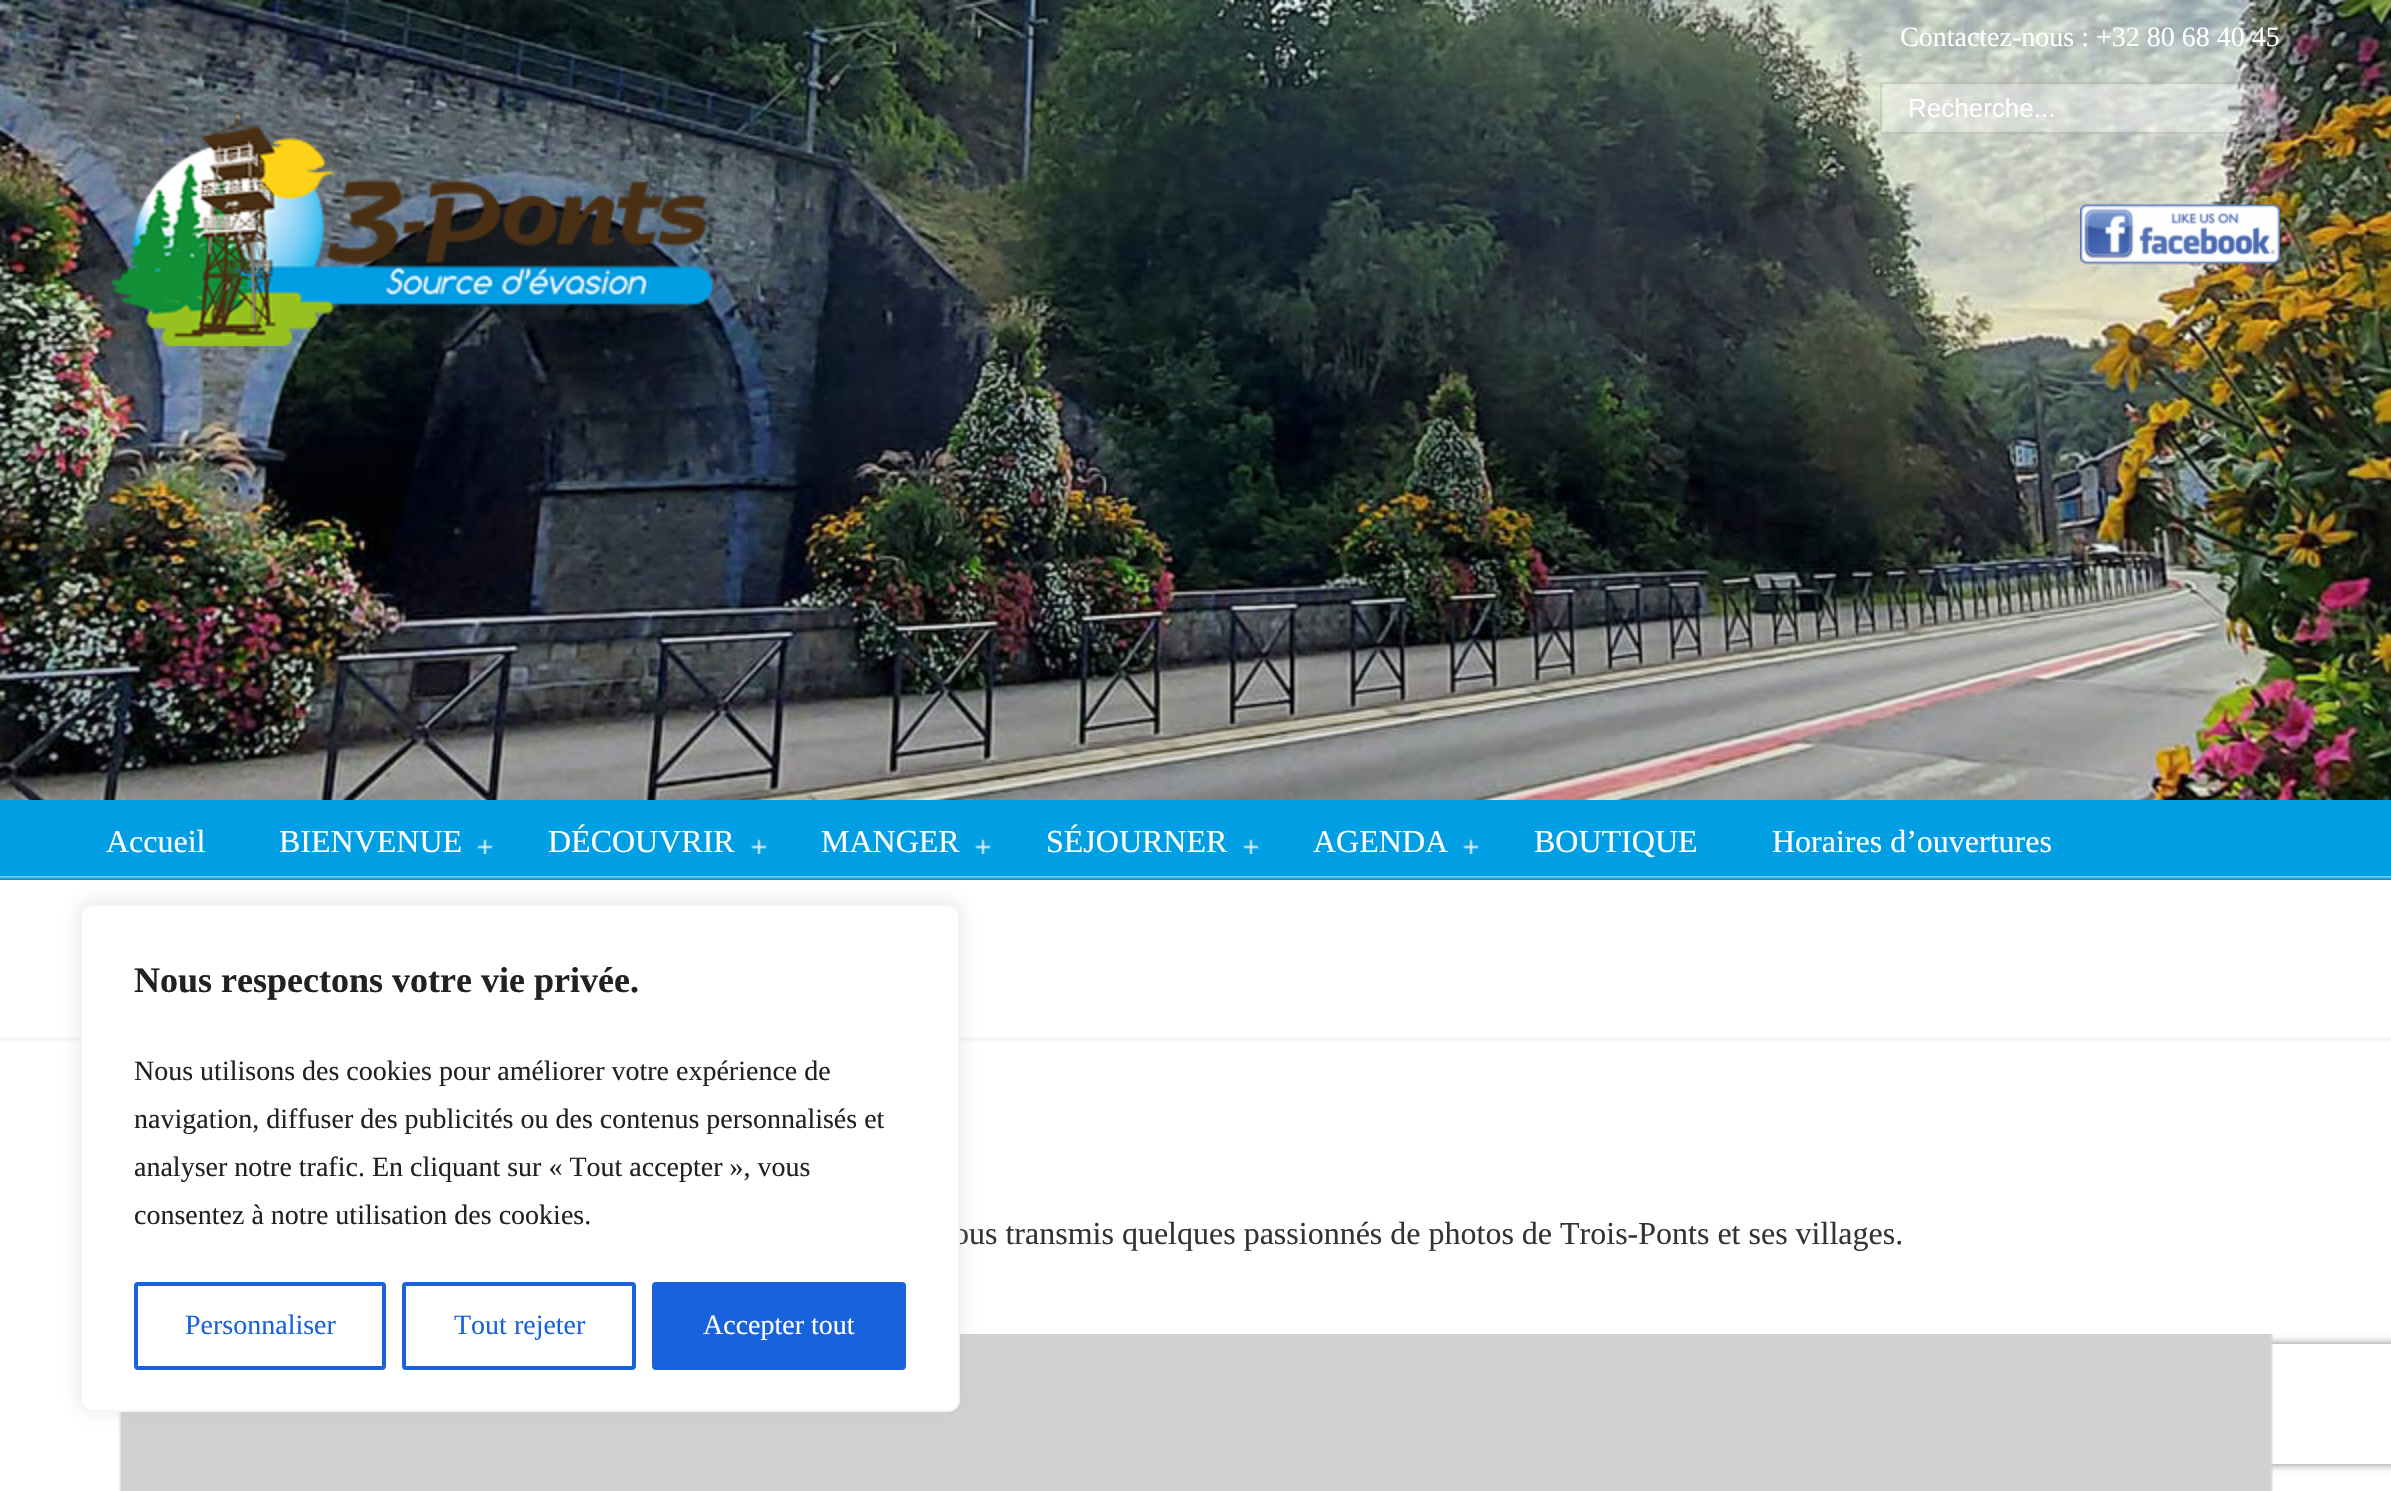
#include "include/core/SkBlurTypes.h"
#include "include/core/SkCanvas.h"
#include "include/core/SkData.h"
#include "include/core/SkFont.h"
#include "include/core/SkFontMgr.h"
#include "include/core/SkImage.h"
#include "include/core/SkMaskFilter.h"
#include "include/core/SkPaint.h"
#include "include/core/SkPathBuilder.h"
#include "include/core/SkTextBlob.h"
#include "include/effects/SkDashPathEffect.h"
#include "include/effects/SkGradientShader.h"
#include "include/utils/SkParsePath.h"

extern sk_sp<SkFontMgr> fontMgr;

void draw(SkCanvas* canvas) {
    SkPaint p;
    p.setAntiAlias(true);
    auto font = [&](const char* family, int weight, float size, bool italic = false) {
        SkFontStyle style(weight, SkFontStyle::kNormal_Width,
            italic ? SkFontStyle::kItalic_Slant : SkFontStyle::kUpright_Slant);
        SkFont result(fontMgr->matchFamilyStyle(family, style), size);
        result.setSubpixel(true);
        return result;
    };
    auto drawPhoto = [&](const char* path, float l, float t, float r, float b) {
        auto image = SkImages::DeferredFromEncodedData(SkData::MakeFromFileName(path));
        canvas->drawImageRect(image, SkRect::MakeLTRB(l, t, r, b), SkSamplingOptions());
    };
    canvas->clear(0xFFFFFFFF);
    drawPhoto("media/1.png", 0, 0, 2391, 800);
    auto font1 = font("Liberation Serif", 400, 28);
    p.setColor(0xFFFFFFFF);
    canvas->drawString("Contactez-nous : +32 80 68 40 45", 1900, 46, font1, p);
    drawPhoto("media/2.png", 1880, 82, 2198, 134);
    auto font2 = font("Liberation Sans", 400, 26);
    canvas->drawString("Recherche...", 1908, 117, font2, p);
    drawPhoto("media/3.png", 2198, 82, 2278, 134);
    drawPhoto("media/4.png", 112, 112, 712, 346);
    drawPhoto("media/5.png", 2080, 203, 2280, 265);
    p.setColor(0xFF009FE3);
    canvas->drawRect(SkRect::MakeLTRB(0, 800, 2391, 880), p);
    drawPhoto("media/6.png", 0, 876, 2391, 880);
    auto font3 = font("Liberation Serif", 400, 32);
    p.setColor(0xFFFFFFFF);
    canvas->drawString("Accueil", 106, 852, font3, p);
    canvas->drawString("BIENVENUE", 279, 852, font3, p);
    drawPhoto("media/7.png", 477, 839, 493, 854);
    canvas->drawString("DÉCOUVRIR", 548, 852, font3, p);
    drawPhoto("media/7.png", 751, 839, 767, 854);
    canvas->drawString("MANGER", 821, 852, font3, p);
    drawPhoto("media/7.png", 975, 839, 991, 854);
    canvas->drawString("SÉJOURNER", 1046, 852, font3, p);
    drawPhoto("media/7.png", 1243, 839, 1259, 854);
    canvas->drawString("AGENDA", 1313, 852, font3, p);
    drawPhoto("media/7.png", 1463, 839, 1479, 854);
    canvas->drawString("BOUTIQUE", 1534, 852, font3, p);
    canvas->drawString("Horaires d’ouvertures", 1772, 852, font3, p);
    drawPhoto("media/8.png", 0, 1037, 2391, 1041);
    p.setColor(0xFF333333);
    canvas->drawString("ous transmis quelques passionnés de photos de Trois-Ponts et ses villages.", 953, 1244, font3, p);
    canvas->save();
    canvas->clipPath(SkPathBuilder(SkPathFillType::kEvenOdd).moveTo(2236, 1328).lineTo(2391, 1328).lineTo(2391, 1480).lineTo(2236, 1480).close().moveTo(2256, 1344).lineTo(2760, 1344).cubicTo(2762, 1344, 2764, 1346, 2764, 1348).lineTo(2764, 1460).cubicTo(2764, 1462, 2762, 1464, 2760, 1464).lineTo(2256, 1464).cubicTo(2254, 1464, 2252, 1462, 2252, 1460).lineTo(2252, 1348).cubicTo(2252, 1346, 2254, 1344, 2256, 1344).close().detach(), true);
    p.setColor(0xFF808080);
    p.setMaskFilter(SkMaskFilter::MakeBlur(kNormal_SkBlurStyle, 5));
    canvas->drawRoundRect(SkRect::MakeLTRB(2252, 1344, 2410, 1464), 4, 4, p);
    p.setMaskFilter(nullptr);
    canvas->restore();
    drawPhoto("media/9.png", 118, 1334, 2273, 1491);
    p.setColor(0x4DACABAB);
    p.setMaskFilter(SkMaskFilter::MakeBlur(kNormal_SkBlurStyle, 10));
    canvas->drawRoundRect(SkRect::MakeLTRB(80, 902, 960, 1410), 12, 12, p);
    p.setMaskFilter(nullptr);
    p.setColor(0xFFFFFFFF);
    canvas->drawRoundRect(SkRect::MakeLTRB(81, 905, 959, 1411), 11, 11, p);
    p.setStyle(SkPaint::kStroke_Style);
    p.setStrokeWidth(2);
    p.setColor(0xFFF4F4F4);
    canvas->drawRoundRect(SkRect::MakeLTRB(81, 905, 959, 1411), 11, 11, p);
    auto font4 = font("Liberation Serif", 700, 36);
    p.setStyle(SkPaint::kFill_Style);
    p.setColor(0xFF212121);
    canvas->drawString("Nous respectons votre vie privée.", 134, 992, font4, p);
    {
        const struct { const char* s; float x, y; } items[] = {
            {"Nous utilisons des cookies pour améliorer votre expérience de", 134, 1080},
            {"navigation, diffuser des publicités ou des contenus personnalisés et", 134, 1128},
            {"analyser notre trafic. En cliquant sur « Tout accepter », vous", 134, 1176},
            {"consentez à notre utilisation des cookies.", 134, 1224},
        };
        for (auto [s, x, y] : items) {
            canvas->drawString(s, x, y, font1, p);
        }
    }
    p.setStyle(SkPaint::kStroke_Style);
    p.setStrokeWidth(4);
    p.setColor(0xFF1863DC);
    canvas->drawRoundRect(SkRect::MakeLTRB(136, 1284, 384, 1368), 2, 2, p);
    p.setStyle(SkPaint::kFill_Style);
    canvas->drawString("Personnaliser", 185, 1334, font1, p);
    p.setStyle(SkPaint::kStroke_Style);
    canvas->drawRoundRect(SkRect::MakeLTRB(404, 1284, 634, 1368), 2, 2, p);
    p.setStyle(SkPaint::kFill_Style);
    canvas->drawString("Tout rejeter", 454, 1334, font1, p);
    canvas->drawRoundRect(SkRect::MakeLTRB(654, 1284, 904, 1368), 2, 2, p);
    p.setStyle(SkPaint::kStroke_Style);
    canvas->drawRoundRect(SkRect::MakeLTRB(654, 1284, 904, 1368), 2, 2, p);
    p.setStyle(SkPaint::kFill_Style);
    p.setColor(0xFFFFFFFF);
    canvas->drawString("Accepter tout", 703, 1334, font1, p);
}
